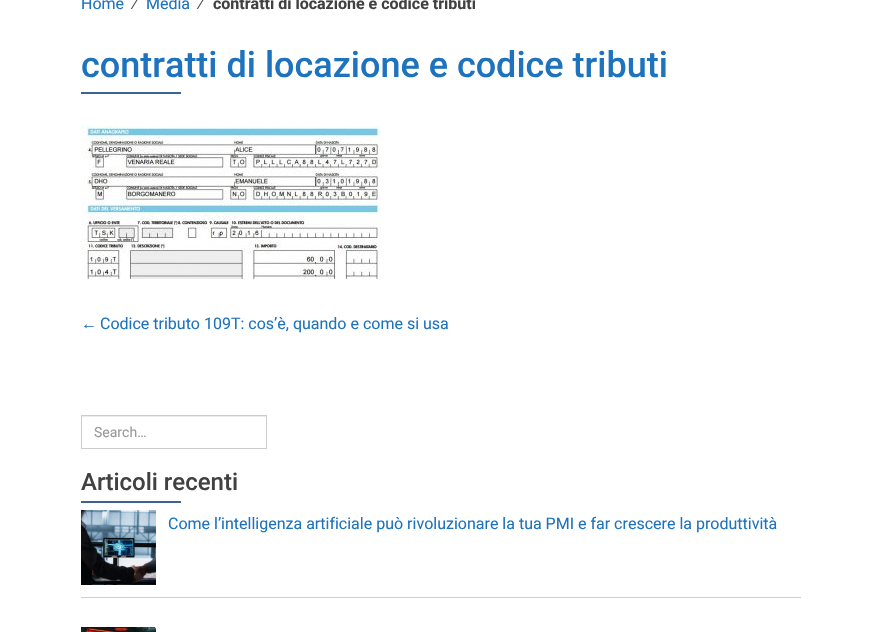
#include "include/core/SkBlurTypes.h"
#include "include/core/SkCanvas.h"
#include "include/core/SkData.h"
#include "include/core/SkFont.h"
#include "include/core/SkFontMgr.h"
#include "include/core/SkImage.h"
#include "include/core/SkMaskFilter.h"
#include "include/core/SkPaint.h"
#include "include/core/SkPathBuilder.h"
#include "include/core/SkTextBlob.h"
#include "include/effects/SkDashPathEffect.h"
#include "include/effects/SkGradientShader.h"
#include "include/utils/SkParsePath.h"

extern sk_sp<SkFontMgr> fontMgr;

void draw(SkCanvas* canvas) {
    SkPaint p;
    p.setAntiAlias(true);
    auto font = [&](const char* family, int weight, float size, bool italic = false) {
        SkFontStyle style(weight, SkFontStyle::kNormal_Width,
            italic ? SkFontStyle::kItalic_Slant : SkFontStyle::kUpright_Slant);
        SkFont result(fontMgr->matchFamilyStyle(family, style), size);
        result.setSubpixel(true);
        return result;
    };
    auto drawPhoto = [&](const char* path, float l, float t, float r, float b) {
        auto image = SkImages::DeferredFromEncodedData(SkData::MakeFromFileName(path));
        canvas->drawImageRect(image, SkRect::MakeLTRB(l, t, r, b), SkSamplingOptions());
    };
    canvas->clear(0xFFFFFFFF);
    auto font1 = font("Roboto", 400, 16);
    p.setColor(0xFF1E73BE);
    canvas->drawString("Home", 81, 9, font1, p);
    auto font2 = font("Liberation Sans", 400, 16);
    p.setColor(0xFF505050);
    canvas->drawString("∕", 134, 9, font2, p);
    p.setColor(0xFF1E73BE);
    canvas->drawString("Media", 146, 9, font1, p);
    p.setColor(0xFF505050);
    canvas->drawString("∕", 200, 9, font2, p);
    auto font3 = font("Roboto", 700, 16);
    p.setColor(0xFF424141);
    canvas->drawString("contratti di locazione e codice tributi", 213, 9, font3, p);
    auto font4 = font("Roboto", 500, 36);
    p.setColor(0xFF1E73BE);
    canvas->drawString("contratti di locazione e codice tributi", 81, 77, font4, p);
    p.setColor(0xFF3A6591);
    canvas->drawRect(SkRect::MakeLTRB(81, 92, 181, 94), p);
    drawPhoto("media/1.png", 81, 126, 381, 279);
    p.setColor(0xFF1E73BE);
    canvas->drawString("←", 81, 329, font2, p);
    canvas->drawString("Codice tributo 109T: cos’è, quando e come si usa", 100, 329, font1, p);
    p.setColor(0xFFECECEC);
    canvas->drawRect(SkRect::MakeLTRB(82, 416, 266, 417), p);
    p.setStyle(SkPaint::kStroke_Style);
    p.setStrokeWidth(1);
    p.setColor(0xFFCCCCCC);
    canvas->drawRect(SkRect::MakeLTRB(81.5f, 415.5f, 266.5f, 448.5f), p);
    auto font5 = font("Roboto", 400, 14);
    p.setStyle(SkPaint::kFill_Style);
    p.setColor(0xFF999999);
    canvas->drawString("Search…", 94, 437, font5, p);
    auto font6 = font("Roboto", 500, 24);
    p.setColor(0xFF424141);
    canvas->drawString("Articoli recenti", 81, 490, font6, p);
    p.setColor(0xFF3A6591);
    canvas->drawRect(SkRect::MakeLTRB(81, 501, 181, 503), p);
    p.setColor(0xFFCFCFCF);
    canvas->drawRect(SkRect::MakeLTRB(81, 597, 801, 598), p);
    drawPhoto("media/2.png", 81, 510, 156, 585);
    p.setColor(0xFF1E73BE);
    canvas->drawString("Come l’intelligenza artificiale può rivoluzionare la tua PMI e far crescere la produttività", 168, 529, font1, p);
    drawPhoto("media/3.png", 81, 627, 156, 632);
}
